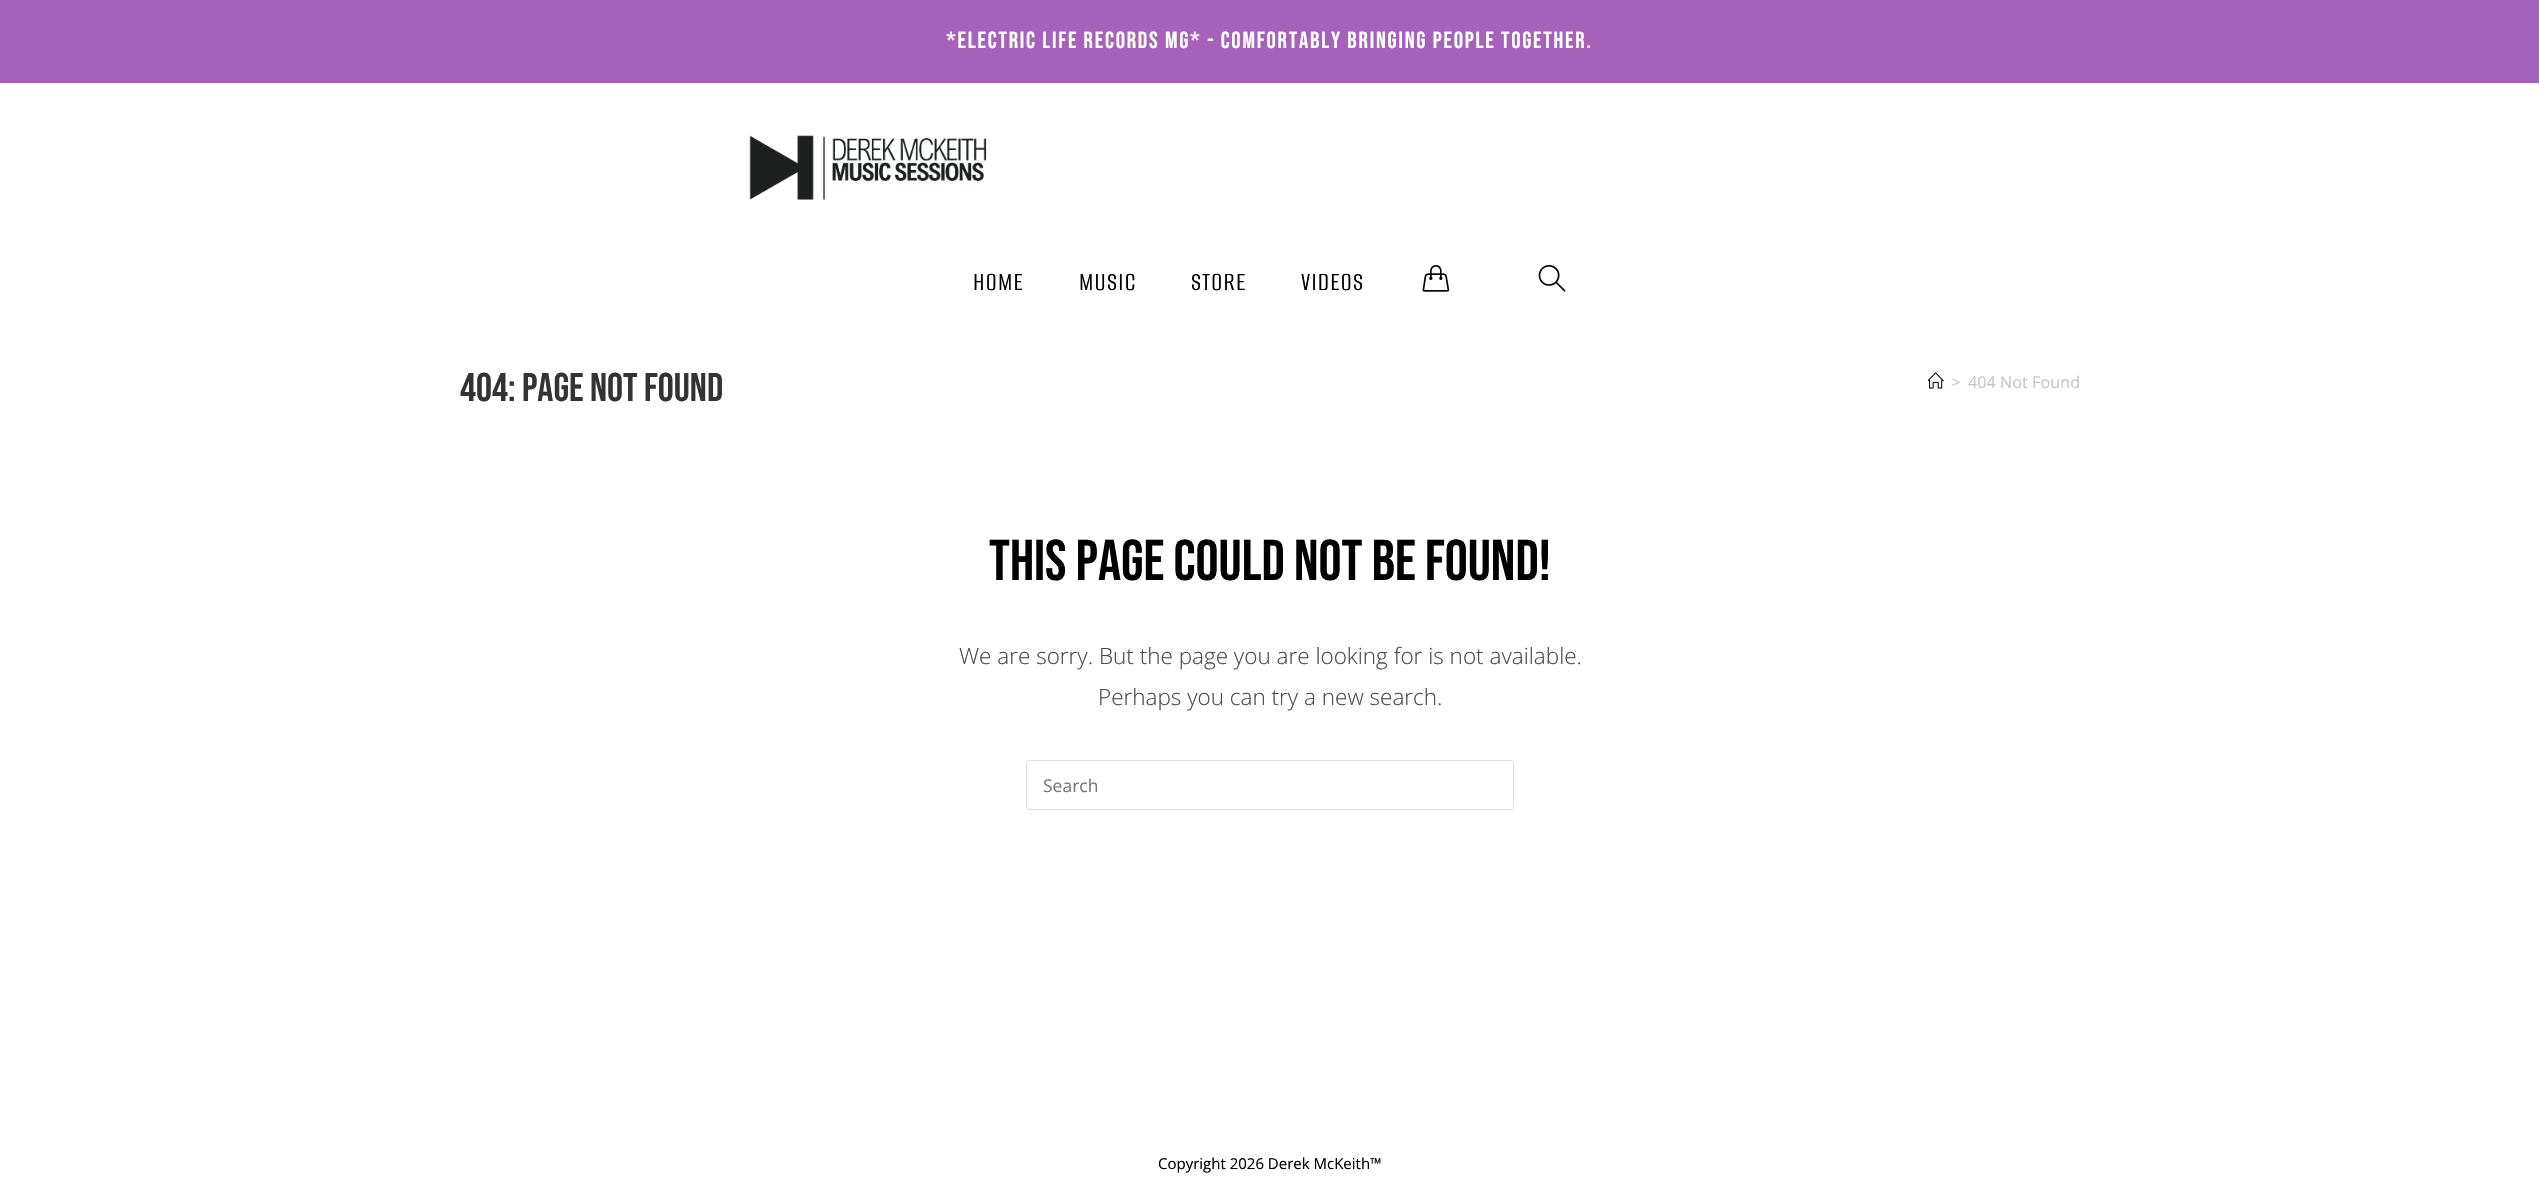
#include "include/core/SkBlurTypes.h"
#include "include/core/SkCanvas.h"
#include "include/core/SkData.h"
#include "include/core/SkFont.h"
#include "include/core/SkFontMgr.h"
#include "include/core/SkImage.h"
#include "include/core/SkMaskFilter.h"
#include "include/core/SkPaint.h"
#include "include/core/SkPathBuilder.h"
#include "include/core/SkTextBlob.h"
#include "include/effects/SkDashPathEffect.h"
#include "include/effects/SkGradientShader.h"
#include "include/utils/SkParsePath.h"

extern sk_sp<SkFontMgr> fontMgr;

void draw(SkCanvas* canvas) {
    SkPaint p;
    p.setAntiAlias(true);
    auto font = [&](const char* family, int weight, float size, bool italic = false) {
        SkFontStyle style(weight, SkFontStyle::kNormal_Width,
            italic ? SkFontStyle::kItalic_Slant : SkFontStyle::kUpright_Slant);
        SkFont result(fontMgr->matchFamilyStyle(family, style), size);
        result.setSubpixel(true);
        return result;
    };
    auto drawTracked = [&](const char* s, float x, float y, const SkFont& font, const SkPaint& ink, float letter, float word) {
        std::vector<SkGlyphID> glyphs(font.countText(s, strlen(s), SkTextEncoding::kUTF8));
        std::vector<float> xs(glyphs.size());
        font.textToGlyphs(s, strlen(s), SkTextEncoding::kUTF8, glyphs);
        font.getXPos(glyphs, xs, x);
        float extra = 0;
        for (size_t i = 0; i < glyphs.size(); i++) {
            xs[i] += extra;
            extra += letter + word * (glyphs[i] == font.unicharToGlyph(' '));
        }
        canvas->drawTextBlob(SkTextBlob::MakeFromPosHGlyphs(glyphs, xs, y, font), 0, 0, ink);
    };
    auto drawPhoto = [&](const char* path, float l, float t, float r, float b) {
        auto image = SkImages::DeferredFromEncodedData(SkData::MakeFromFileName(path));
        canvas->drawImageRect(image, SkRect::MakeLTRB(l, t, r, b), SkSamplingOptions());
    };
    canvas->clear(0xFFFFFFFF);
    p.setColor(0xFFA661BA);
    canvas->drawRect(SkRect::MakeLTRB(0, 0, 2539, 83), p);
    auto font1 = font("Bebas Neue", 400, 23.3f);
    p.setColor(0xFFFFFFFF);
    drawTracked("*Electric Life Records MG* - Comfortably Bringing People Together.", 946, 48, font1, p, 1.75f, 0);
    drawPhoto("media/1.png", 749, 135, 987, 200);
    auto font2 = font("Alumni Sans", 400, 27);
    p.setColor(0xFF000000);
    {
        const struct { const char* s; float x, y; } items[] = {
            {"HOME", 973, 290},
            {"MUSIC", 1079, 290},
            {"STORE", 1191, 290},
            {"VIDEOS", 1301, 290},
        };
        for (auto [s, x, y] : items) {
            drawTracked(s, x, y, font2, p, 1.25f, 0);
        }
    }
    drawPhoto("media/2.png", 1422, 265, 1450, 292);
    drawPhoto("media/3.png", 1538, 265, 1566, 292);
    auto font3 = font("Bebas Neue", 400, 40);
    p.setColor(0xFF333333);
    canvas->drawString("404: Page Not Found", 460, 401, font3, p);
    drawPhoto("media/4.png", 1928, 372, 1944, 389);
    auto font4 = font("Open Sans", 400, 16.25f);
    p.setColor(0xFFC6C6C6);
    canvas->drawString(">", 1951, 388, font4, p);
    canvas->drawString("404 Not Found", 1968, 388, font4, p);
    auto font5 = font("Bebas Neue", 400, 57.5f);
    p.setColor(0xFF000000);
    canvas->drawString("This page could not be found!", 989, 580, font5, p);
    auto font6 = font("Open Sans", 300, 22.5f);
    p.setColor(0xFF4A4A4A);
    canvas->drawString("We are sorry. But the page you are looking for is not available.", 959, 664, font6, p);
    canvas->drawString("Perhaps you can try a new search.", 1098, 705, font6, p);
    p.setStyle(SkPaint::kStroke_Style);
    p.setStrokeWidth(1);
    p.setColor(0xFFDDDDDD);
    canvas->drawRoundRect(SkRect::MakeLTRB(1026.5f, 760.5f, 1513.5f, 809.5f), 3.5f, 3.5f, p);
    auto font7 = font("Open Sans", 400, 17.5f);
    p.setStyle(SkPaint::kFill_Style);
    p.setColor(0xFF757575);
    canvas->drawString("Search", 1043, 792, font7, p);
    auto font8 = font("Open Sans", 400, 15);
    p.setColor(0xFF000000);
    canvas->drawString("Copyright 2026 Derek McKeith™", 1158, 1169, font8, p);
}
